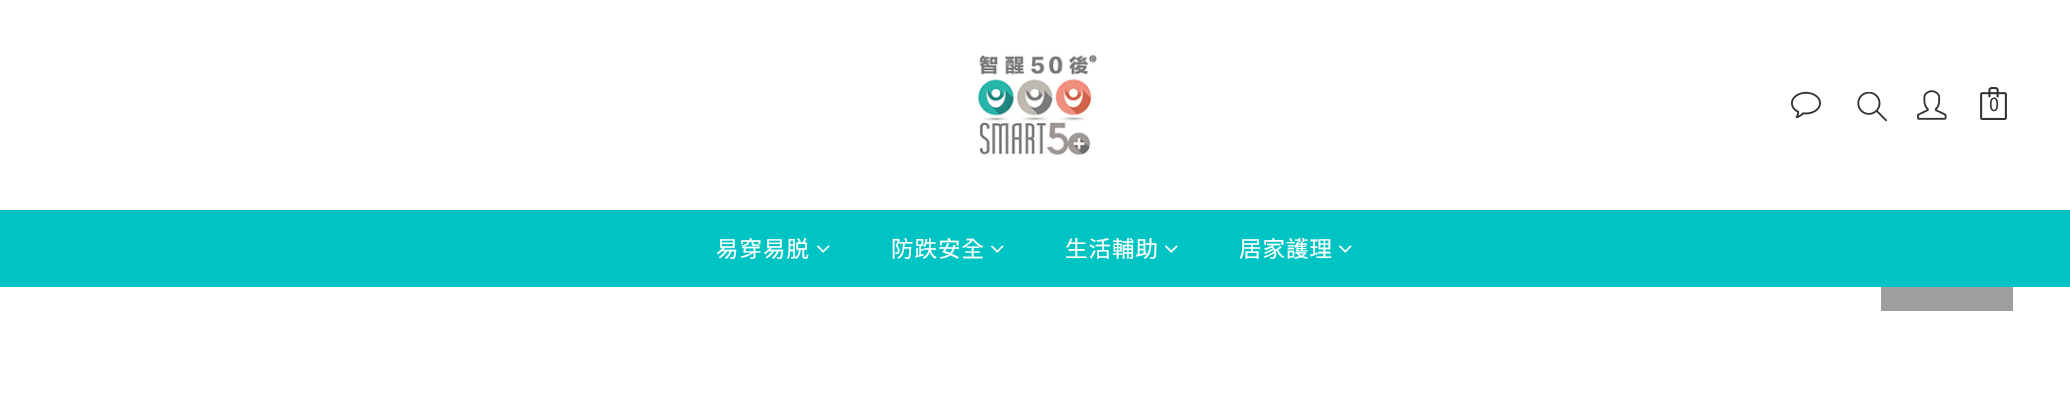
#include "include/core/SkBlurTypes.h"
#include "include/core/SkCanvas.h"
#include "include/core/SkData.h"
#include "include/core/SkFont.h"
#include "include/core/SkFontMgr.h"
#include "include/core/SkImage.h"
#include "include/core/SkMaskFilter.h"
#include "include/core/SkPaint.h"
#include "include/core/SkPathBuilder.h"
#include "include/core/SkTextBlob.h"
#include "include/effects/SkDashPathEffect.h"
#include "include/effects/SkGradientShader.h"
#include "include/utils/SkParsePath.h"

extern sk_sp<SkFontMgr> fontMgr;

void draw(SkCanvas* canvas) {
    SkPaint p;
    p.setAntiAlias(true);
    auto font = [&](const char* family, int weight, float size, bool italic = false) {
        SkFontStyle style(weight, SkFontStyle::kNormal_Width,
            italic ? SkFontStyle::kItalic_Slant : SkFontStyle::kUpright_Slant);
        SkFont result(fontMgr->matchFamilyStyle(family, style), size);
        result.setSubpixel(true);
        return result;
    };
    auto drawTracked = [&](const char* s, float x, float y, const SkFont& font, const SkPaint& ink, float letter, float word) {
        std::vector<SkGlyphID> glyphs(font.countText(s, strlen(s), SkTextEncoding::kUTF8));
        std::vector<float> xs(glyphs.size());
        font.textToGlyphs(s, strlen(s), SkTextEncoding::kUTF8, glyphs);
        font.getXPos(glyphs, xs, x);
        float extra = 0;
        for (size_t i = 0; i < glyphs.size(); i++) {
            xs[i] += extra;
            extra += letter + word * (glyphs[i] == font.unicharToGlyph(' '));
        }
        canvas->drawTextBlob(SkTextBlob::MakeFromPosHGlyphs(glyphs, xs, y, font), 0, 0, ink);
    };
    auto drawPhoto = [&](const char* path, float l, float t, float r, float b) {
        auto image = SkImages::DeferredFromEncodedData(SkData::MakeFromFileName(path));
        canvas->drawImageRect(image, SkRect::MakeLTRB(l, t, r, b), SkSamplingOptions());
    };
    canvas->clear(0xFFFFFFFF);
    drawPhoto("media/1.png", 976, 54, 1097, 156);
    drawPhoto("media/2.png", 1791, 91, 1821, 119);
    drawPhoto("media/3.png", 1857, 92, 1887, 122);
    drawPhoto("media/4.png", 1917, 90, 1947, 120);
    drawPhoto("media/5.png", 1980, 87, 2007, 120);
    auto font1 = font("Noto Sans TC", 400, 18);
    p.setColor(0xFF333333);
    canvas->drawString("0", 1989, 111, font1, p);
    p.setColor(0xFF00C4C4);
    canvas->drawRect(SkRect::MakeLTRB(0, 210, 2070, 287), p);
    auto font2 = font("Noto Sans TC", 400, 22.5f);
    p.setColor(0xFFFFFFFF);
    drawTracked("易穿易脱", 716, 257, font2, p, 1, 0);
    drawPhoto("media/6.png", 817, 245, 830, 253);
    drawTracked("防跌安全", 891, 257, font2, p, 1, 0);
    drawPhoto("media/6.png", 991, 245, 1004, 253);
    drawTracked("生活輔助", 1065, 257, font2, p, 1, 0);
    drawPhoto("media/6.png", 1165, 245, 1178, 253);
    drawTracked("居家護理", 1239, 257, font2, p, 1, 0);
    drawPhoto("media/6.png", 1339, 245, 1352, 253);
    p.setColor(0xFF9E9E9E);
    canvas->drawRect(SkRect::MakeLTRB(1881, 287, 2013, 311), p);
}
